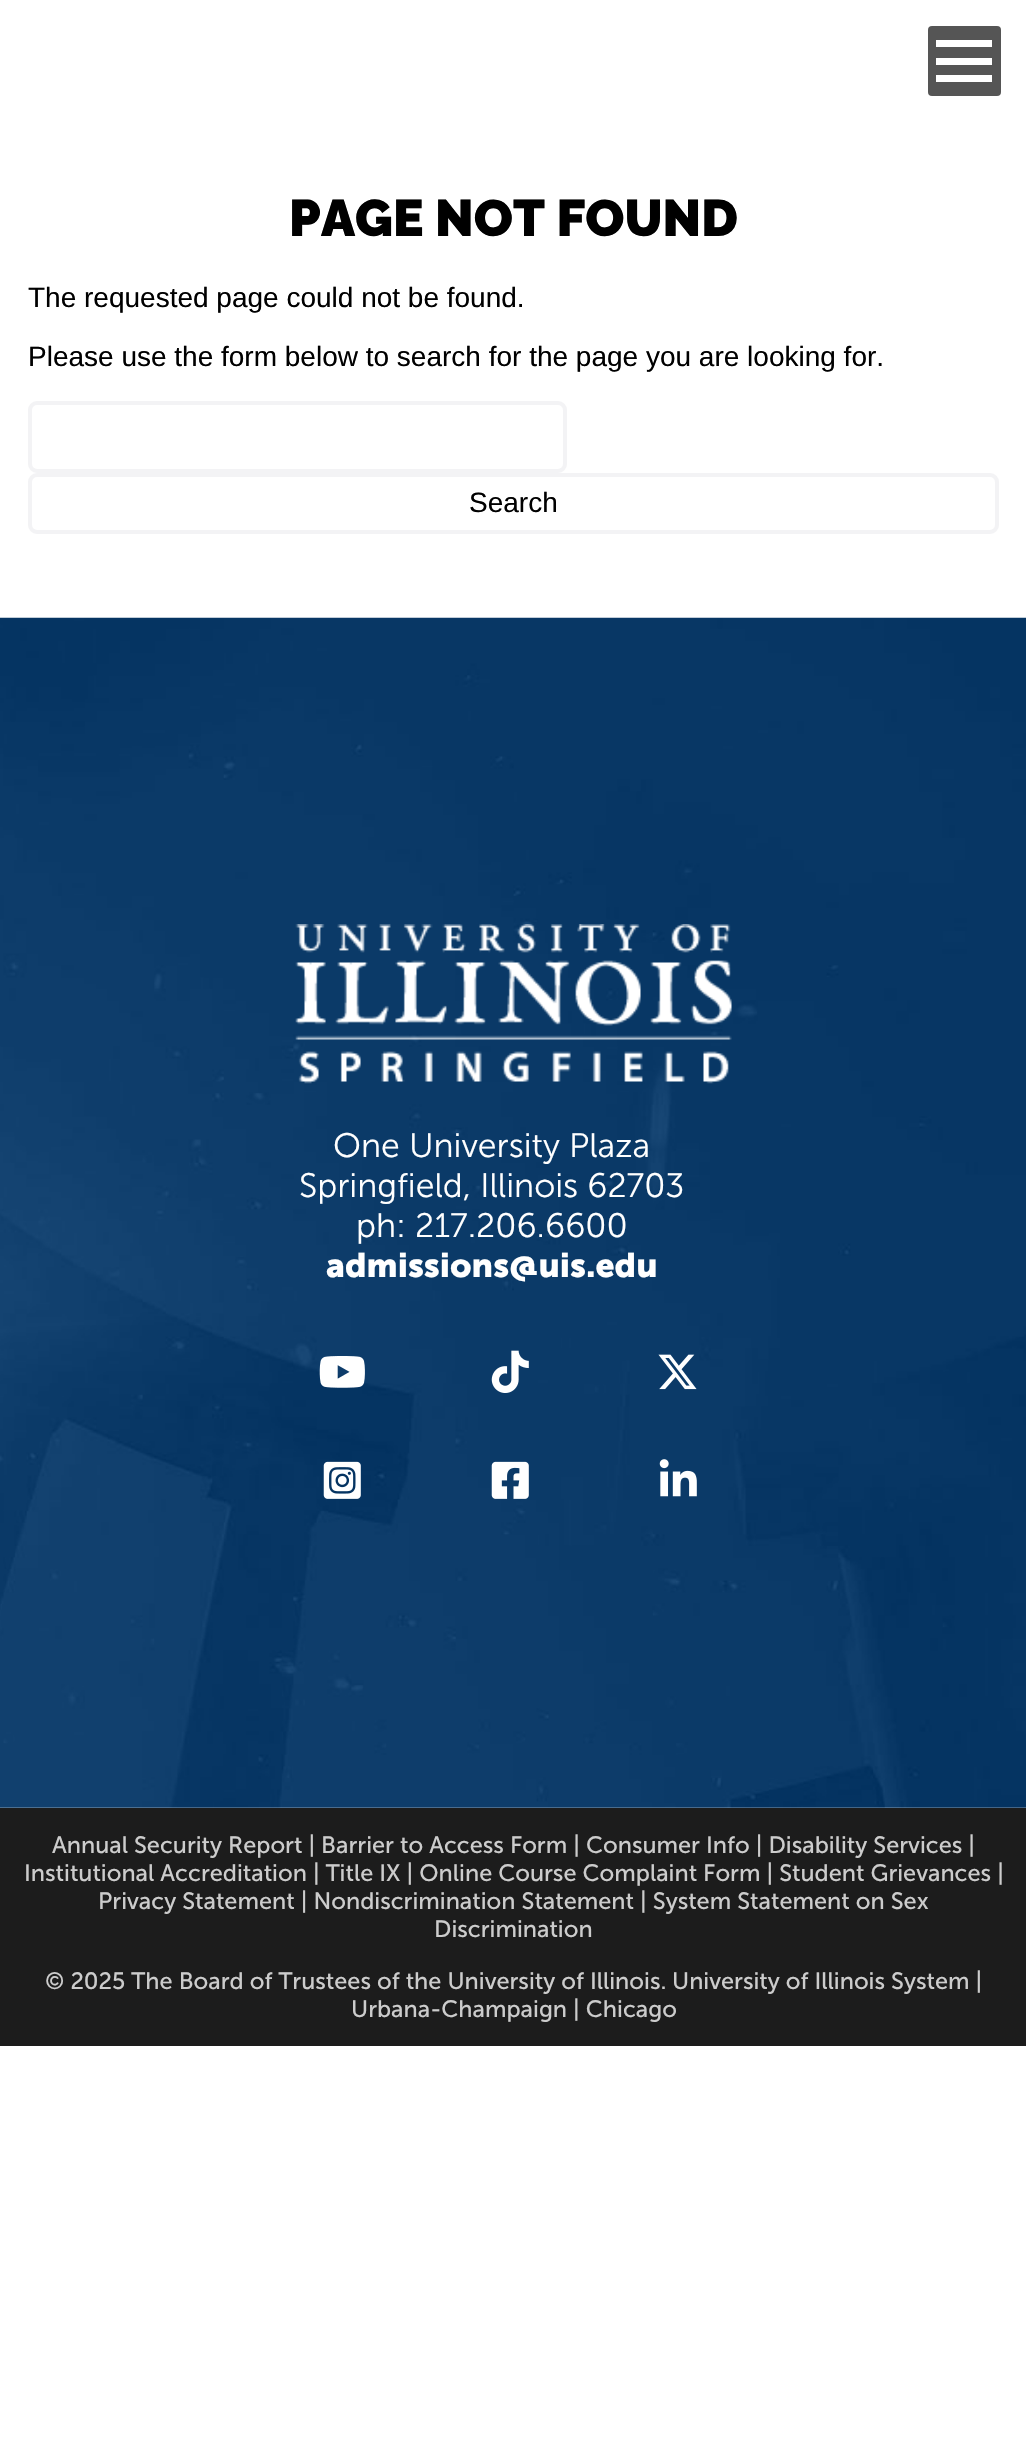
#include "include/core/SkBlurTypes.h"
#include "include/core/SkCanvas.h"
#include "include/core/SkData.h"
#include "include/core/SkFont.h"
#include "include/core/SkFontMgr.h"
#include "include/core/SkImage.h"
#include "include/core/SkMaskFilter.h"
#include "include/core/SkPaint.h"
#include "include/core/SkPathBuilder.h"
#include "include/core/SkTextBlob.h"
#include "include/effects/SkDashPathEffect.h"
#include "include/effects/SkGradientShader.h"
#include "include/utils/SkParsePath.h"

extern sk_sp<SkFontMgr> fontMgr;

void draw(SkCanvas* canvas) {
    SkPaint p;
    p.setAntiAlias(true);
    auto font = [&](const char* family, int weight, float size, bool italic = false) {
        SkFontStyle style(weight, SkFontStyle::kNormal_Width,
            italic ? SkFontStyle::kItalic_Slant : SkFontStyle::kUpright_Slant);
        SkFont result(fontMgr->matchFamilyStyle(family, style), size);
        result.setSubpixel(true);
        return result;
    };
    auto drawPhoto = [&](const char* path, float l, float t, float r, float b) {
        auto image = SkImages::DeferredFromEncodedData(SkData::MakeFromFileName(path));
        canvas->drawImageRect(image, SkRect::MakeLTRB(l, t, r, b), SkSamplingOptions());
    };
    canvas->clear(0xFFFFFFFF);
    p.setColor(0xFF555555);
    canvas->drawRoundRect(SkRect::MakeLTRB(928, 26, 1001, 96), 4, 4, p);
    {
        const struct { float l, t, r, b; SkColor color; } items[] = {
            {936, 58, 992, 65, 0xFFFFFFFF},
            {936, 40, 992, 47, 0xFFFFFFFF},
            {936, 75, 992, 82, 0xFFFFFFFF},
        };
        for (auto [l, t, r, b, color] : items) {
            p.setColor(color);
            canvas->drawRect(SkRect::MakeLTRB(l, t, r, b), p);
        }
    }
    auto font1 = font("Raleway", 900, 51.25f);
    p.setColor(0xFF000000);
    canvas->drawString("PAGE NOT FOUND", 289, 236, font1, p);
    auto font2 = font("Liberation Sans", 400, 28);
    canvas->drawString("The requested page could not be found.", 28, 307, font2, p);
    canvas->drawString("Please use the form below to search for the page you are looking for.", 28, 366, font2, p);
    p.setStyle(SkPaint::kStroke_Style);
    p.setStrokeWidth(4);
    p.setColor(0xFFF3F3F5);
    canvas->drawRoundRect(SkRect::MakeLTRB(30, 403, 565, 471), 7, 7, p);
    canvas->drawRoundRect(SkRect::MakeLTRB(30, 475, 997, 532), 7, 7, p);
    p.setStyle(SkPaint::kFill_Style);
    p.setColor(0xFF000000);
    canvas->drawString("Search", 469, 512, font2, p);
    drawPhoto("media/1.png", 0, 617, 1026, 1808);
    drawPhoto("media/2.png", 295, 924, 732, 1084);
    auto font3 = font("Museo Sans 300", 300, 33.9f);
    p.setColor(0xFFFFFFFF);
    {
        const struct { const char* s; float x, y; } items[] = {
            {"One University Plaza", 333, 1157},
            {"Springfield, Illinois 62703", 299, 1197},
            {"ph: 217.206.6600", 356, 1237},
        };
        for (auto [s, x, y] : items) {
            canvas->drawString(s, x, y, font3, p);
        }
    }
    auto font4 = font("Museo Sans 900", 700, 33.9f);
    canvas->drawString("admissions@uis.edu", 326, 1277, font4, p);
    drawPhoto("media/3.png", 319, 1356, 365, 1388);
    drawPhoto("media/4.png", 491, 1350, 529, 1393);
    drawPhoto("media/5.png", 658, 1354, 697, 1390);
    drawPhoto("media/6.png", 323, 1461, 361, 1499);
    drawPhoto("media/7.png", 491, 1461, 529, 1499);
    drawPhoto("media/8.png", 659, 1459, 697, 1497);
    p.setColor(0xFF1C1C1C);
    canvas->drawRect(SkRect::MakeLTRB(0, 1808, 1026, 2046), p);
    auto font5 = font("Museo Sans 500", 400, 23.55f);
    p.setColor(0xFFCCCCCC);
    {
        const struct { const char* s; float x, y; } items[] = {
            {"Annual Security Report | Barrier to Access Form | Consumer Info | Disability Services |", 52, 1853},
            {"Institutional Accreditation | Title IX | Online Course Complaint Form | Student Grievances |", 24, 1881},
            {"Privacy Statement | Nondiscrimination Statement | System Statement on Sex", 98, 1909},
            {"Discrimination", 434, 1937},
            {"© 2025 The Board of Trustees of the University of Illinois.", 45, 1989},
            {"University of Illinois System |", 672, 1989},
            {"Urbana-Champaign | Chicago", 351, 2017},
        };
        for (auto [s, x, y] : items) {
            canvas->drawString(s, x, y, font5, p);
        }
    }
}
